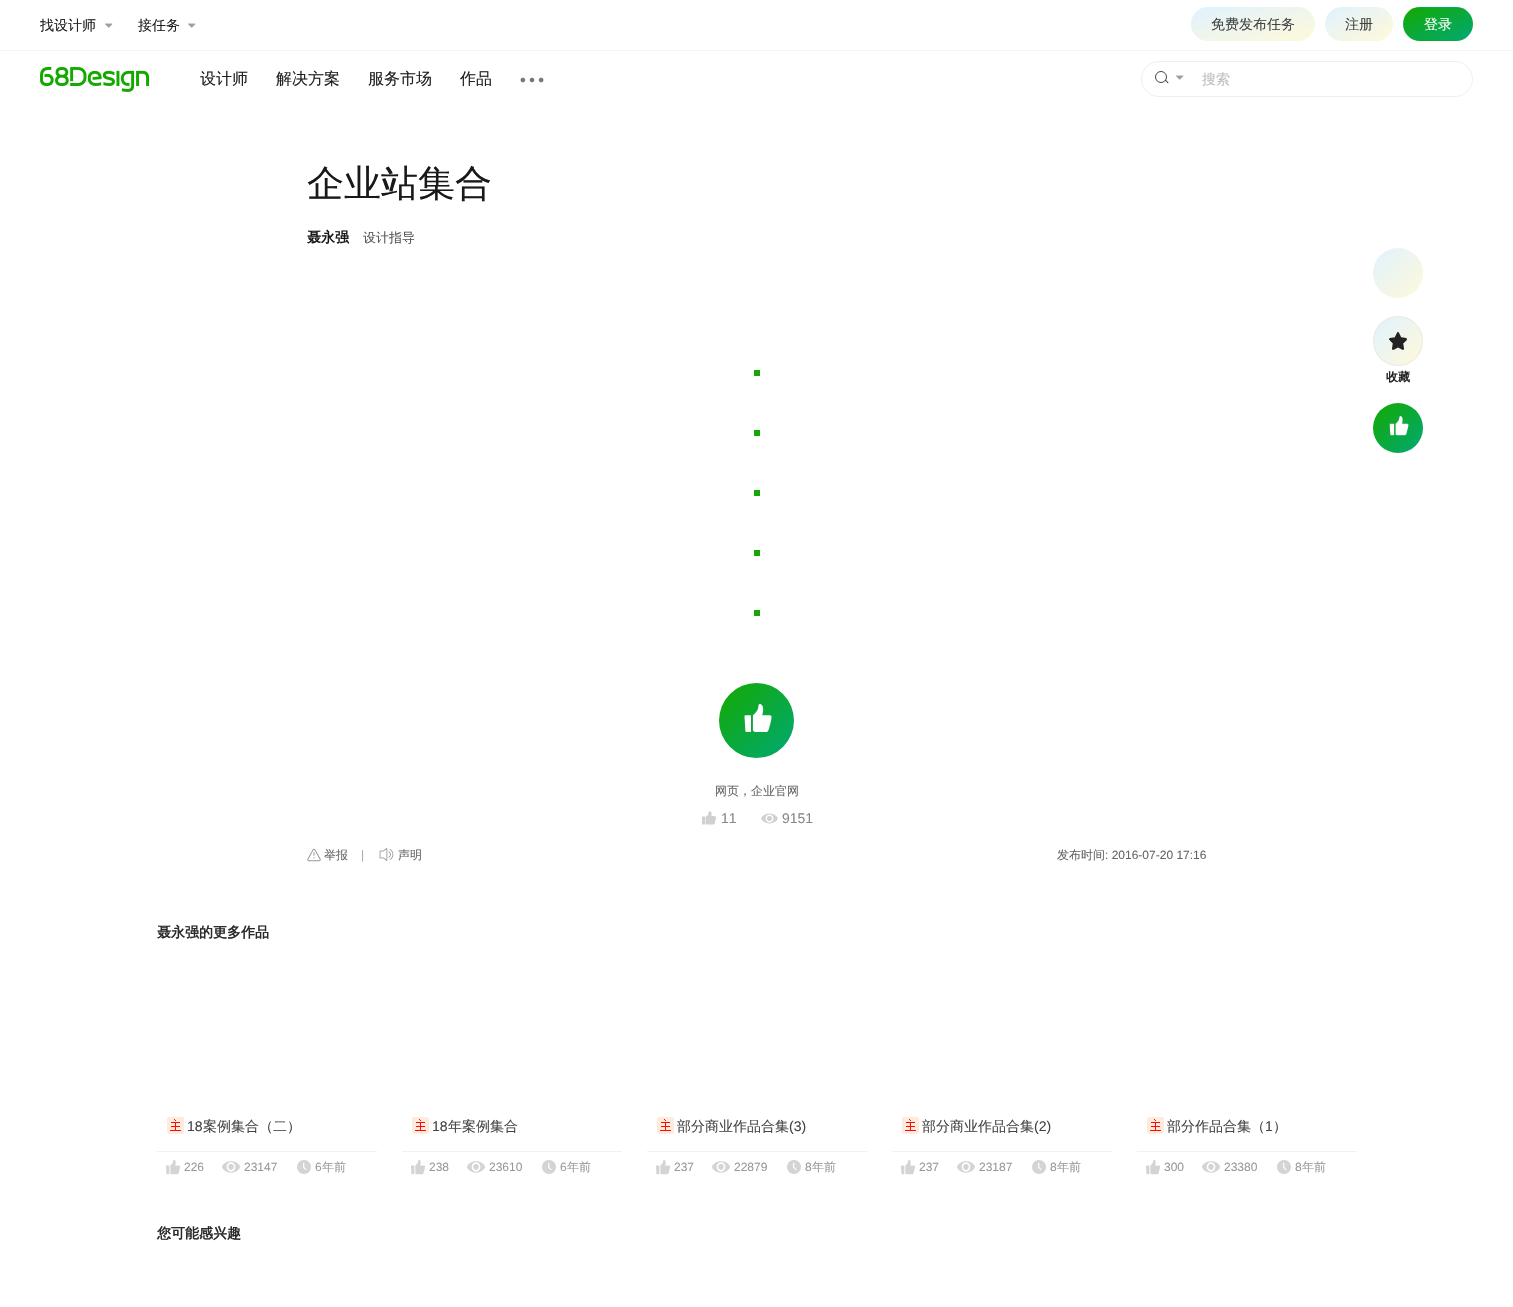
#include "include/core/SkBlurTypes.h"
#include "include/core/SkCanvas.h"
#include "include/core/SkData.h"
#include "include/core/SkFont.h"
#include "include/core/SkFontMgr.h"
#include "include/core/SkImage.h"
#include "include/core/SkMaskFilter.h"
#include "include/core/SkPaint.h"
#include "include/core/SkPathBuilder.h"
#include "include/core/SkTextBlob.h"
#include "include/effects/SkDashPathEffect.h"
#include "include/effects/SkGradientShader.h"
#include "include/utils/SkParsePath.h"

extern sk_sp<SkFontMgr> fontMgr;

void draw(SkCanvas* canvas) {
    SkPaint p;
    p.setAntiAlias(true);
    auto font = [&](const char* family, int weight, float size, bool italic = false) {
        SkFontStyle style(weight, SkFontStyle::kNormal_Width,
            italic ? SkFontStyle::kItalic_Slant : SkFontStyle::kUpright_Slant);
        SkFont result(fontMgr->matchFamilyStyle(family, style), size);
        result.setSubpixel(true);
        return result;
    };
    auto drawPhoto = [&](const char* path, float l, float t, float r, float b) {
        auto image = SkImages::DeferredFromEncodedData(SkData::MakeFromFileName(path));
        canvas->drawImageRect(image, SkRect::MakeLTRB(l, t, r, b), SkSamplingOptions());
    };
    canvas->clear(0xFFFFFFFF);
    p.setColor(0xFFF3F3F3);
    canvas->drawRect(SkRect::MakeLTRB(0, 50, 1513, 51), p);
    auto font1 = font("WenQuanYi Zen Hei", 500, 14);
    p.setColor(0xFF222222);
    canvas->drawString("找设计师", 40, 30, font1, p);
    drawPhoto("media/1.png", 105, 23, 113, 28);
    canvas->drawString("接任务", 138, 30, font1, p);
    drawPhoto("media/1.png", 188, 23, 196, 28);
    {
        const SkColor colors[] = {0xFFE0F2FF, 0xFFFFF9D9};
        const float stops[] = {0, 1};
        const SkPoint ends[] = {{1244, -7.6f}, {1262, 56}};
        p.setShader(SkGradientShader::MakeLinear(ends, colors, stops, 2, SkTileMode::kClamp));
        p.setAlpha(255);
    }
    canvas->drawRoundRect(SkRect::MakeLTRB(1191, 7, 1315, 41), 17, 17, p);
    p.setShader(nullptr);
    p.setColor(0xFF444444);
    canvas->drawString("免费发布任务", 1211, 29, font1, p);
    {
        const SkColor colors[] = {0xFFE0F2FF, 0xFFFFF9D9};
        const float stops[] = {0, 1};
        const SkPoint ends[] = {{1345, -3.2f}, {1373, 51}};
        p.setShader(SkGradientShader::MakeLinear(ends, colors, stops, 2, SkTileMode::kClamp));
        p.setAlpha(255);
    }
    canvas->drawRoundRect(SkRect::MakeLTRB(1325, 7, 1393, 41), 17, 17, p);
    p.setShader(nullptr);
    p.setColor(0xFF444444);
    canvas->drawString("注册", 1345, 29, font1, p);
    canvas->save();
    canvas->clipPath(SkPathBuilder().moveTo(1420, 7).lineTo(1456, 7).cubicTo(1465.5f, 7, 1473, 14.5f, 1473, 24).cubicTo(1473, 33.5f, 1465.5f, 41, 1456, 41).lineTo(1420, 41).cubicTo(1410.5f, 41, 1403, 33.5f, 1403, 24).cubicTo(1403, 14.5f, 1410.5f, 7, 1420, 7).close().detach(), true);
    {
        const SkColor colors[] = {0xFF14A900, 0xFF00A974};
        const float stops[] = {0, 1};
        const SkPoint ends[] = {{1426, -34}, {1450, 18}};
        p.setShader(SkGradientShader::MakeLinear(ends, colors, stops, 2, SkTileMode::kClamp));
        p.setAlpha(255);
    }
    canvas->drawRect(SkRect::MakeLTRB(1414, 7, 1462, 8), p);
    {
        const SkColor colors[] = {0xFF14A900, 0xFF00A974};
        const float stops[] = {0, 1};
        const SkPoint ends[] = {{1358, -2.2f}, {1382, 50}};
        p.setShader(SkGradientShader::MakeLinear(ends, colors, stops, 2, SkTileMode::kClamp));
        p.setAlpha(255);
    }
    canvas->drawRect(SkRect::MakeLTRB(1403, 18, 1404, 30), p);
    {
        const SkColor colors[] = {0xFF14A900, 0xFF00A974};
        const float stops[] = {0, 1};
        const SkPoint ends[] = {{1426, -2.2f}, {1450, 50}};
        p.setShader(SkGradientShader::MakeLinear(ends, colors, stops, 2, SkTileMode::kClamp));
        p.setAlpha(255);
    }
    canvas->drawRect(SkRect::MakeLTRB(1404, 8, 1472, 40), p);
    {
        const SkColor colors[] = {0xFF14A900, 0xFF00A974};
        const float stops[] = {0, 1};
        const SkPoint ends[] = {{1494, -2.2f}, {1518, 50}};
        p.setShader(SkGradientShader::MakeLinear(ends, colors, stops, 2, SkTileMode::kClamp));
        p.setAlpha(255);
    }
    canvas->drawRect(SkRect::MakeLTRB(1472, 18, 1473, 30), p);
    {
        const SkColor colors[] = {0xFF14A900, 0xFF00A974};
        const float stops[] = {0, 1};
        const SkPoint ends[] = {{1426, 30}, {1450, 82}};
        p.setShader(SkGradientShader::MakeLinear(ends, colors, stops, 2, SkTileMode::kClamp));
        p.setAlpha(255);
    }
    canvas->drawRect(SkRect::MakeLTRB(1414, 40, 1462, 41), p);
    canvas->restore();
    p.setShader(nullptr);
    p.setColor(0xFFFFFFFF);
    canvas->drawString("登录", 1424, 29, font1, p);
    drawPhoto("media/2.png", 40, 67, 149, 92);
    auto font2 = font("WenQuanYi Zen Hei", 500, 16);
    p.setColor(0xFF222222);
    {
        const struct { const char* s; float x, y; } items[] = {
            {"设计师", 200, 84},
            {"解决方案", 276, 84},
            {"服务市场", 368, 84},
            {"作品", 460, 84},
        };
        for (auto [s, x, y] : items) {
            canvas->drawString(s, x, y, font2, p);
        }
    }
    drawPhoto("media/3.png", 520, 77, 544, 83);
    p.setStyle(SkPaint::kStroke_Style);
    p.setStrokeWidth(1);
    p.setColor(0xFFEFEFEF);
    canvas->drawRoundRect(SkRect::MakeLTRB(1141.5f, 61.5f, 1472.5f, 96.5f), 17.5f, 17.5f, p);
    p.setColor(0xFF444444);
    canvas->drawCircle(1161, 77, 5.5f, p);
    p.setStyle(SkPaint::kFill_Style);
    canvas->drawPath(SkPathBuilder().moveTo(1165.5f, 79.5f).lineTo(1168.5f, 82.5f).lineTo(1168, 83.5f).lineTo(1165, 80.5f).close().detach(), p);
    drawPhoto("media/1.png", 1176, 75, 1184, 80);
    p.setColor(0xFFBEBEBE);
    canvas->drawString("搜索", 1202, 84, font1, p);
    auto font3 = font("WenQuanYi Zen Hei", 500, 37);
    p.setColor(0xFF191919);
    canvas->drawString("企业站集合", 307, 196, font3, p);
    auto font4 = font("WenQuanYi Zen Hei", 700, 14);
    canvas->drawString("聂永强", 307, 242, font4, p);
    auto font5 = font("WenQuanYi Zen Hei", 500, 13);
    p.setColor(0xFF555555);
    canvas->drawString("设计指导", 363, 242, font5, p);
    {
        const SkColor colors[] = {0xFFE0F2FF, 0xFFFFF9D9};
        const float stops[] = {0, 1};
        const SkPoint ends[] = {{1373, 248}, {1423, 298}};
        p.setShader(SkGradientShader::MakeLinear(ends, colors, stops, 2, SkTileMode::kClamp));
        p.setAlpha(255);
    }
    canvas->drawCircle(1398, 273, 25, p);
    canvas->save();
    canvas->clipPath(SkPathBuilder().moveTo(1398, 316).cubicTo(1412, 316, 1423, 327, 1423, 341).cubicTo(1423, 355, 1412, 366, 1398, 366).cubicTo(1384, 366, 1373, 355, 1373, 341).cubicTo(1373, 327, 1384, 316, 1398, 316).close().detach(), true);
    {
        const SkColor colors[] = {0xFFE0F2FF, 0xFFFFF9D9};
        const float stops[] = {0, 1};
        const SkPoint ends[] = {{1374, 317}, {1422, 365}};
        p.setShader(SkGradientShader::MakeLinear(ends, colors, stops, 2, SkTileMode::kClamp));
        p.setAlpha(255);
    }
    canvas->drawRect(SkRect::MakeLTRB(1374, 317, 1422, 365), p);
    canvas->restore();
    p.setStyle(SkPaint::kStroke_Style);
    p.setShader(nullptr);
    p.setColor(0xFFE9E9E9);
    canvas->drawCircle(1398, 341, 24.5f, p);
    drawPhoto("media/4.png", 1389, 332, 1407, 350);
    auto font6 = font("WenQuanYi Zen Hei", 700, 12);
    p.setStyle(SkPaint::kFill_Style);
    p.setColor(0xFF222222);
    canvas->drawString("收藏", 1386, 381, font6, p);
    {
        const SkColor colors[] = {0xFF14A900, 0xFF00A974};
        const float stops[] = {0, 1};
        const SkPoint ends[] = {{1373, 403}, {1423, 453}};
        p.setShader(SkGradientShader::MakeLinear(ends, colors, stops, 2, SkTileMode::kClamp));
        p.setAlpha(255);
    }
    canvas->drawCircle(1398, 428, 25, p);
    drawPhoto("media/5.png", 1389, 416, 1409, 436);
    p.setShader(nullptr);
    {
        const struct { float l, t, r, b; SkColor color; } items[] = {
            {754, 370, 760, 376, 0xFF14A900},
            {754, 430, 760, 436, 0xFF14A900},
            {754, 490, 760, 496, 0xFF14A900},
            {754, 550, 760, 556, 0xFF14A900},
            {754, 610, 760, 616, 0xFF14A900},
        };
        for (auto [l, t, r, b, color] : items) {
            p.setColor(color);
            canvas->drawRect(SkRect::MakeLTRB(l, t, r, b), p);
        }
    }
    {
        const SkColor colors[] = {0xFF14A900, 0xFF00A974};
        const float stops[] = {0, 1};
        const SkPoint ends[] = {{719, 683}, {794, 758}};
        p.setShader(SkGradientShader::MakeLinear(ends, colors, stops, 2, SkTileMode::kClamp));
        p.setAlpha(255);
    }
    canvas->drawCircle(756.5f, 720.5f, 37.5f, p);
    drawPhoto("media/6.png", 744, 704, 772, 732);
    auto font7 = font("WenQuanYi Zen Hei", 500, 12);
    p.setShader(nullptr);
    p.setColor(0xFF666666);
    canvas->drawString("网页，企业官网", 715, 795, font7, p);
    drawPhoto("media/7.png", 702, 811, 716, 825);
    auto font8 = font("Liberation Sans", 400, 14);
    p.setColor(0xFF888888);
    canvas->drawString("11", 721, 823, font8, p);
    drawPhoto("media/8.png", 761, 813, 778, 824);
    canvas->drawString("9151", 782, 823, font8, p);
    drawPhoto("media/9.png", 307, 848, 321, 862);
    p.setColor(0xFF666666);
    canvas->drawString("举报", 324, 859, font7, p);
    auto font9 = font("Liberation Sans", 400, 12);
    p.setColor(0xFFAAAAAA);
    canvas->drawString("|", 361, 859, font9, p);
    drawPhoto("media/10.png", 379, 848, 394, 861);
    p.setColor(0xFF666666);
    canvas->drawString("声明", 398, 859, font7, p);
    canvas->drawString("发布时间", 1057, 859, font7, p);
    canvas->drawString(": 2016-07-20 17:16", 1105, 859, font9, p);
    p.setColor(0xFF2B2B2B);
    canvas->drawString("聂永强的更多作品", 157, 937, font4, p);
    drawPhoto("media/11.png", 167, 1117, 184, 1134);
    p.setColor(0xFF444444);
    canvas->drawString("18", 187, 1131, font8, p);
    canvas->drawString("案例集合（二）", 203, 1131, font1, p);
    p.setColor(0xFFF1F1F1);
    canvas->drawRect(SkRect::MakeLTRB(157, 1151, 377, 1152), p);
    drawPhoto("media/12.png", 166, 1159, 180, 1175);
    p.setColor(0xFF999999);
    canvas->drawString("226", 184, 1171, font9, p);
    drawPhoto("media/13.png", 222, 1161, 240, 1173);
    canvas->drawString("23147", 244, 1171, font9, p);
    drawPhoto("media/14.png", 297, 1160, 311, 1174);
    canvas->drawString("6", 315, 1171, font9, p);
    canvas->drawString("年前", 322, 1171, font7, p);
    drawPhoto("media/11.png", 412, 1117, 429, 1134);
    p.setColor(0xFF444444);
    canvas->drawString("18", 432, 1131, font8, p);
    canvas->drawString("年案例集合", 448, 1131, font1, p);
    p.setColor(0xFFF1F1F1);
    canvas->drawRect(SkRect::MakeLTRB(402, 1151, 622, 1152), p);
    drawPhoto("media/12.png", 411, 1159, 425, 1175);
    p.setColor(0xFF999999);
    canvas->drawString("238", 429, 1171, font9, p);
    drawPhoto("media/13.png", 467, 1161, 485, 1173);
    canvas->drawString("23610", 489, 1171, font9, p);
    drawPhoto("media/14.png", 542, 1160, 556, 1174);
    canvas->drawString("6", 560, 1171, font9, p);
    canvas->drawString("年前", 567, 1171, font7, p);
    drawPhoto("media/11.png", 657, 1117, 674, 1134);
    p.setColor(0xFF444444);
    canvas->drawString("部分商业作品合集", 677, 1131, font1, p);
    canvas->drawString("(3)", 789, 1131, font8, p);
    p.setColor(0xFFF1F1F1);
    canvas->drawRect(SkRect::MakeLTRB(647, 1151, 867, 1152), p);
    drawPhoto("media/12.png", 656, 1159, 670, 1175);
    p.setColor(0xFF999999);
    canvas->drawString("237", 674, 1171, font9, p);
    drawPhoto("media/13.png", 712, 1161, 730, 1173);
    canvas->drawString("22879", 734, 1171, font9, p);
    drawPhoto("media/14.png", 787, 1160, 801, 1174);
    canvas->drawString("8", 805, 1171, font9, p);
    canvas->drawString("年前", 812, 1171, font7, p);
    drawPhoto("media/11.png", 902, 1117, 919, 1134);
    p.setColor(0xFF444444);
    canvas->drawString("部分商业作品合集", 922, 1131, font1, p);
    canvas->drawString("(2)", 1034, 1131, font8, p);
    p.setColor(0xFFF1F1F1);
    canvas->drawRect(SkRect::MakeLTRB(892, 1151, 1112, 1152), p);
    drawPhoto("media/12.png", 901, 1159, 915, 1175);
    p.setColor(0xFF999999);
    canvas->drawString("237", 919, 1171, font9, p);
    drawPhoto("media/13.png", 957, 1161, 975, 1173);
    canvas->drawString("23187", 979, 1171, font9, p);
    drawPhoto("media/14.png", 1032, 1160, 1046, 1174);
    canvas->drawString("8", 1050, 1171, font9, p);
    canvas->drawString("年前", 1057, 1171, font7, p);
    drawPhoto("media/11.png", 1147, 1117, 1164, 1134);
    p.setColor(0xFF444444);
    canvas->drawString("部分作品合集（", 1167, 1131, font1, p);
    canvas->drawString("1", 1265, 1131, font8, p);
    canvas->drawString("）", 1273, 1131, font1, p);
    p.setColor(0xFFF1F1F1);
    canvas->drawRect(SkRect::MakeLTRB(1137, 1151, 1357, 1152), p);
    drawPhoto("media/12.png", 1146, 1159, 1160, 1175);
    p.setColor(0xFF999999);
    canvas->drawString("300", 1164, 1171, font9, p);
    drawPhoto("media/13.png", 1202, 1161, 1220, 1173);
    canvas->drawString("23380", 1224, 1171, font9, p);
    drawPhoto("media/14.png", 1277, 1160, 1291, 1174);
    canvas->drawString("8", 1295, 1171, font9, p);
    canvas->drawString("年前", 1302, 1171, font7, p);
    p.setColor(0xFF2B2B2B);
    canvas->drawString("您可能感兴趣", 157, 1238, font4, p);
}
